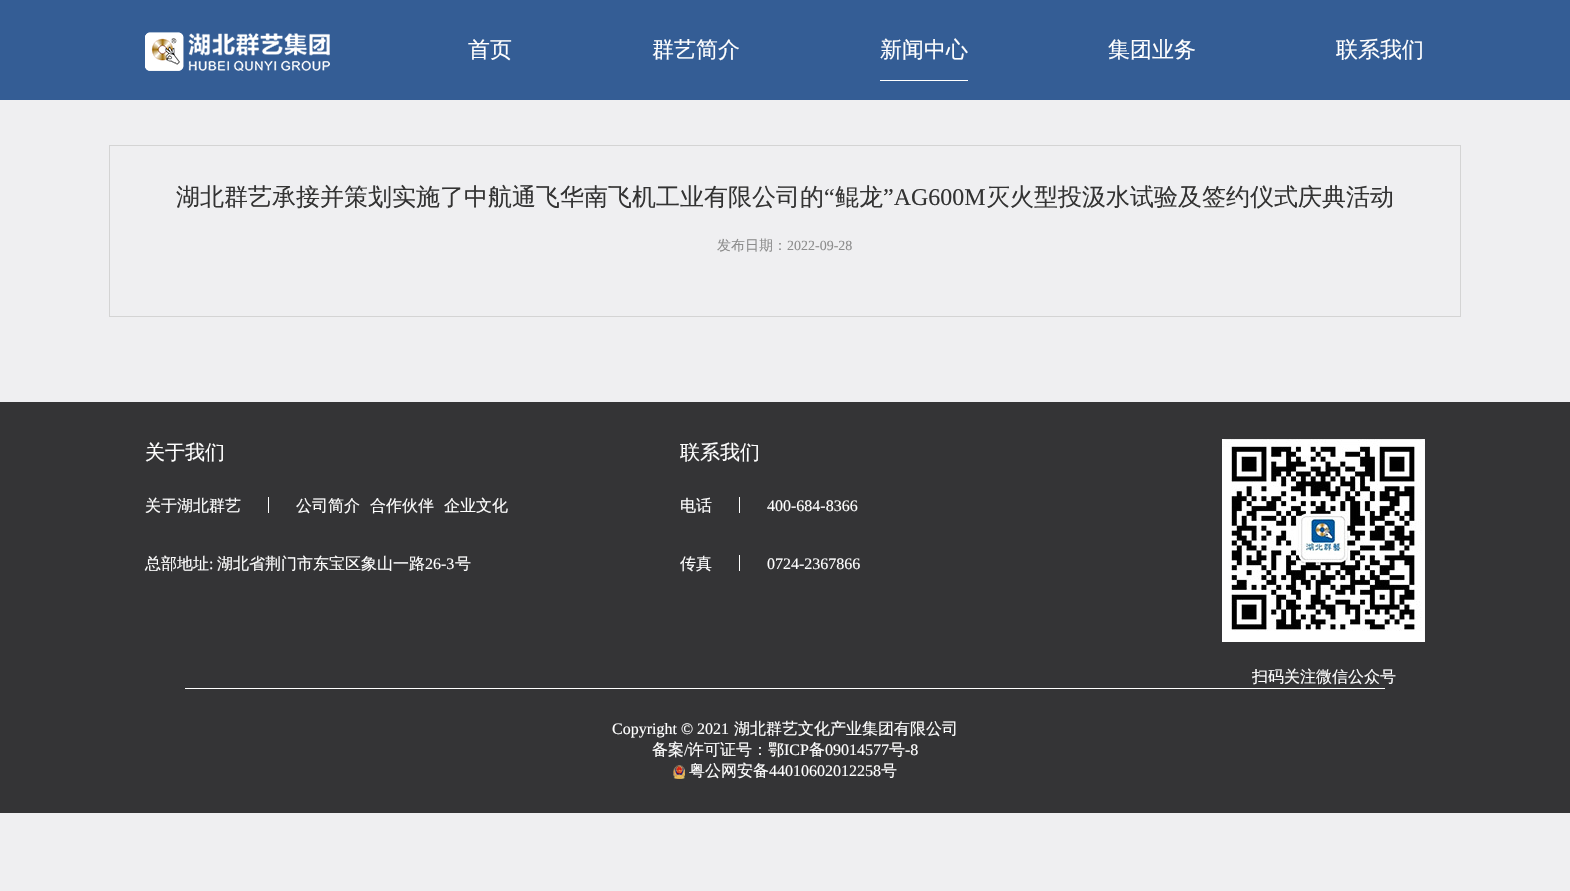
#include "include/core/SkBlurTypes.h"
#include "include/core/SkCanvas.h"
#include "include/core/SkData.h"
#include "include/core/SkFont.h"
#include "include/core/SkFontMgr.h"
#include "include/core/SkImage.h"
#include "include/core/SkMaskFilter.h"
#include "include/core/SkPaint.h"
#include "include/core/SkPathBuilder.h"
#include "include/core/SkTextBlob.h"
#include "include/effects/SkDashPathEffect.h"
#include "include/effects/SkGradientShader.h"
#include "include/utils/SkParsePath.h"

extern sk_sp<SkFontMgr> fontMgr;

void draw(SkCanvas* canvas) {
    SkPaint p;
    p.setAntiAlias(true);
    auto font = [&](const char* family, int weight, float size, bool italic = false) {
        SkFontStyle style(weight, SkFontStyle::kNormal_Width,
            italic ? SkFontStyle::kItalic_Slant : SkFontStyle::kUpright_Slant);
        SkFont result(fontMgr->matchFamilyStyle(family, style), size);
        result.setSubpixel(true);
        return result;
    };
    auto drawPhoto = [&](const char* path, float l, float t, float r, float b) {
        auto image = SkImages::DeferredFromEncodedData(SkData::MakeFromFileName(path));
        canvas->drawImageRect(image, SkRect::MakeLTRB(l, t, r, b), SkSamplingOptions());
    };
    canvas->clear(0xFFEFEFF1);
    p.setColor(0xFF345D95);
    canvas->drawRect(SkRect::MakeLTRB(0, 0, 1570, 100), p);
    drawPhoto("media/1.png", 145, 32, 330, 71);
    auto font1 = font("WenQuanYi Zen Hei", 500, 22);
    p.setColor(0xFFFFFFFF);
    canvas->drawString("首页", 468, 57, font1, p);
    canvas->drawString("群艺简介", 652, 57, font1, p);
    canvas->drawRect(SkRect::MakeLTRB(880, 80, 968, 81), p);
    {
        const struct { const char* s; float x, y; } items[] = {
            {"新闻中心", 880, 57},
            {"集团业务", 1108, 57},
            {"联系我们", 1336, 57},
        };
        for (auto [s, x, y] : items) {
            canvas->drawString(s, x, y, font1, p);
        }
    }
    p.setStyle(SkPaint::kStroke_Style);
    p.setStrokeWidth(1);
    p.setColor(0xFFD4D4D4);
    canvas->drawRect(SkRect::MakeLTRB(109.5f, 145.5f, 1460.5f, 316.5f), p);
    auto font2 = font("WenQuanYi Zen Hei", 500, 24);
    p.setStyle(SkPaint::kFill_Style);
    p.setColor(0xFF333333);
    canvas->drawString("湖北群艺承接并策划实施了中航通飞华南飞机工业有限公司的", 176, 205, font2, p);
    auto font3 = font("Liberation Serif", 400, 24);
    canvas->drawString("“", 824, 205, font3, p);
    canvas->drawString("鲲龙", 835, 205, font2, p);
    canvas->drawString("”AG600M", 883, 205, font3, p);
    canvas->drawString("灭火型投汲水试验及签约仪式庆典活动", 986, 205, font2, p);
    auto font4 = font("WenQuanYi Zen Hei", 500, 14);
    p.setColor(0xFF8D8D8D);
    canvas->drawString("发布日期：", 717, 250, font4, p);
    auto font5 = font("Liberation Serif", 400, 14);
    canvas->drawString("2022-09-28", 787, 250, font5, p);
    p.setColor(0xFF343436);
    canvas->drawRect(SkRect::MakeLTRB(0, 402, 1570, 813), p);
    auto font6 = font("WenQuanYi Zen Hei", 500, 20);
    p.setColor(0xFFFFFFFF);
    canvas->drawString("关于我们", 145, 459, font6, p);
    auto font7 = font("WenQuanYi Zen Hei", 500, 16);
    canvas->drawString("关于湖北群艺", 145, 511, font7, p);
    canvas->drawRect(SkRect::MakeLTRB(268, 497, 269, 513), p);
    {
        const struct { const char* s; float x, y; } items[] = {
            {"公司简介", 296, 511},
            {"合作伙伴", 370, 511},
            {"企业文化", 444, 511},
            {"总部地址", 145, 569},
        };
        for (auto [s, x, y] : items) {
            canvas->drawString(s, x, y, font7, p);
        }
    }
    auto font8 = font("Liberation Serif", 400, 16);
    canvas->drawString(":", 209, 569, font8, p);
    canvas->drawString("湖北省荆门市东宝区象山一路", 217, 569, font7, p);
    canvas->drawString("26-3", 425, 569, font8, p);
    canvas->drawString("号", 455, 569, font7, p);
    canvas->drawString("联系我们", 680, 459, font6, p);
    canvas->drawString("电话", 680, 511, font7, p);
    canvas->drawRect(SkRect::MakeLTRB(739, 497, 740, 513), p);
    canvas->drawString("400-684-8366", 767, 511, font8, p);
    canvas->drawString("传真", 680, 569, font7, p);
    canvas->drawRect(SkRect::MakeLTRB(739, 555, 740, 571), p);
    canvas->drawString("0724-2367866", 767, 569, font8, p);
    drawPhoto("media/2.png", 1222, 439, 1425, 642);
    canvas->drawString("扫码关注微信公众号", 1252, 682, font7, p);
    canvas->drawRect(SkRect::MakeLTRB(185, 688, 1385, 689), p);
    canvas->drawString("Copyright © 2021", 612, 734, font8, p);
    canvas->drawString("湖北群艺文化产业集团有限公司", 734, 734, font7, p);
    canvas->drawString("备案", 652, 755, font7, p);
    canvas->drawString("/", 684, 755, font8, p);
    canvas->drawString("许可证号：鄂", 688, 755, font7, p);
    canvas->drawString("ICP", 784, 755, font8, p);
    canvas->drawString("备", 809, 755, font7, p);
    canvas->drawString("09014577", 825, 755, font8, p);
    canvas->drawString("号", 889, 755, font7, p);
    canvas->drawString("-8", 905, 755, font8, p);
    drawPhoto("media/3.png", 673, 765, 685, 779);
    canvas->drawString("粤公网安备", 689, 776, font7, p);
    canvas->drawString("44010602012258", 769, 776, font8, p);
    canvas->drawString("号", 881, 776, font7, p);
}
